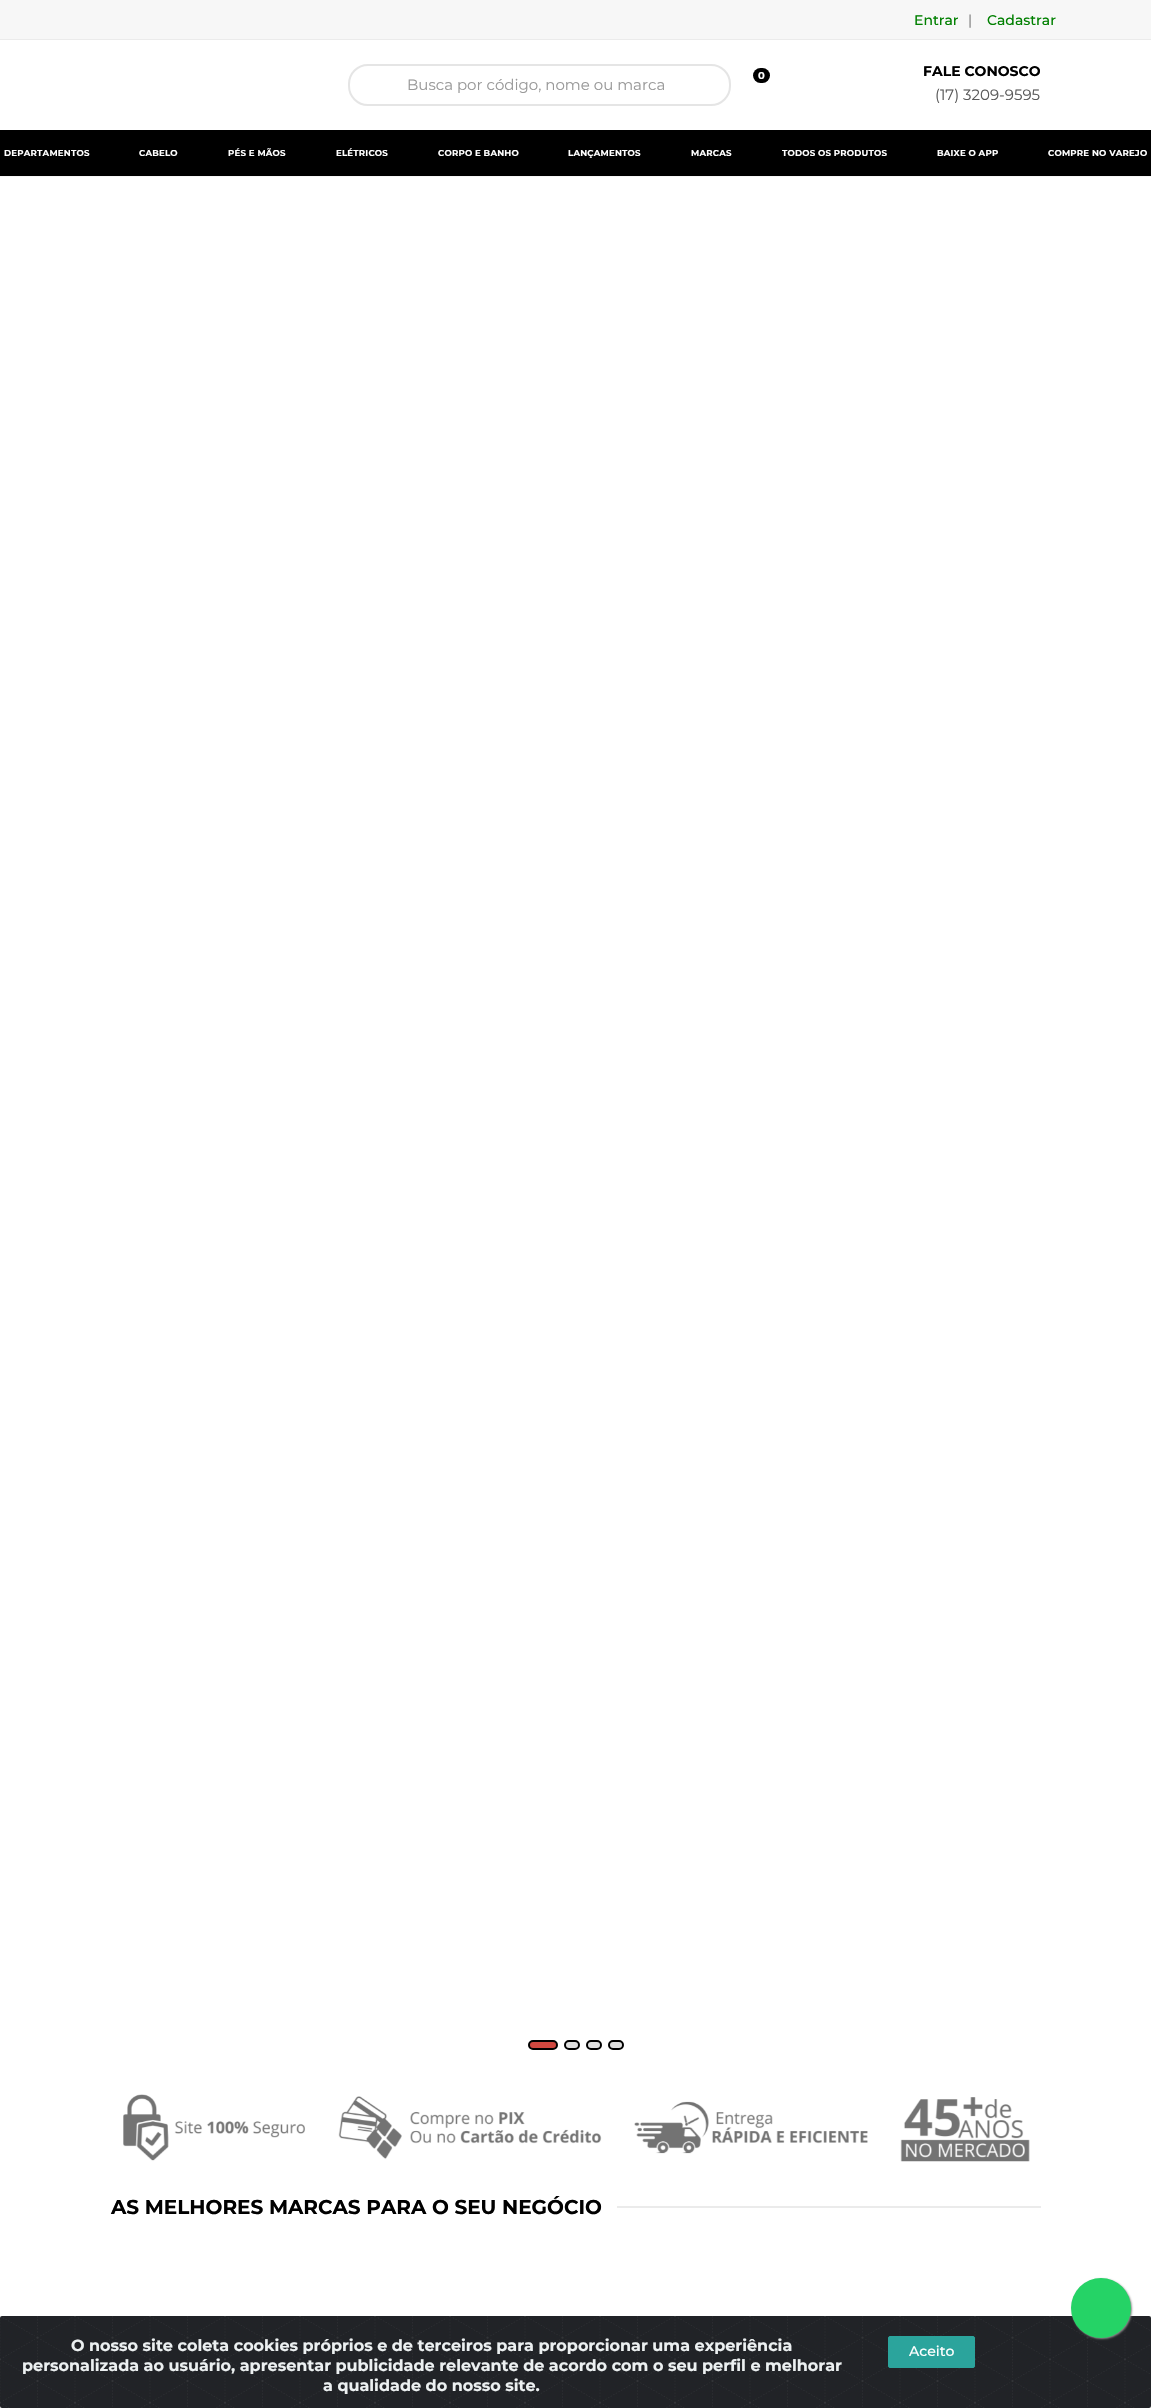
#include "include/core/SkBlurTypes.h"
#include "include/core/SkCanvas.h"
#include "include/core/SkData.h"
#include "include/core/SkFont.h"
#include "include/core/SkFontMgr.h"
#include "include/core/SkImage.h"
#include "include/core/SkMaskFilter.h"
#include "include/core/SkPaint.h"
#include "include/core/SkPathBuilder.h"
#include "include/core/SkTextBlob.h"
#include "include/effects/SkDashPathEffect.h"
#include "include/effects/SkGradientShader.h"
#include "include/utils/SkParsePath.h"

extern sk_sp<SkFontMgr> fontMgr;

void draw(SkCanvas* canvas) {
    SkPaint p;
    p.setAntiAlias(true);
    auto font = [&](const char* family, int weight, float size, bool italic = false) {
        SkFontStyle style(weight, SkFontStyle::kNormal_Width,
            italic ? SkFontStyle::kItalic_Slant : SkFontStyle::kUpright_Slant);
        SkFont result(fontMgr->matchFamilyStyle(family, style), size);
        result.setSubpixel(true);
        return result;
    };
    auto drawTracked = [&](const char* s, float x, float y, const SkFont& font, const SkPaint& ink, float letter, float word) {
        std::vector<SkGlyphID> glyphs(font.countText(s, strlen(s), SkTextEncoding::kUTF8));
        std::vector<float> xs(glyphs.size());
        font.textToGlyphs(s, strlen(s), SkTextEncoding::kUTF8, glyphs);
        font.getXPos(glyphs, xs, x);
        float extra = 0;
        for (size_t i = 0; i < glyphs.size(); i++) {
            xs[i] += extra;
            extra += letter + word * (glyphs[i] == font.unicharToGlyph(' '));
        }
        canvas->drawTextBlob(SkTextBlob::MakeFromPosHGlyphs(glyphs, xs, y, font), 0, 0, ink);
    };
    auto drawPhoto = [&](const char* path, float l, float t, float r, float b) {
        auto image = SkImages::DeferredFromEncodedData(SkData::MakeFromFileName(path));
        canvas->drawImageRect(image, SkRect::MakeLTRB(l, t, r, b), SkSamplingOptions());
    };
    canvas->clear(0xFFFFFFFF);
    p.setColor(0xFFF7F7F7);
    canvas->drawRect(SkRect::MakeLTRB(0, 0, 1151, 39), p);
    p.setColor(0xFFEBEBEB);
    canvas->drawRect(SkRect::MakeLTRB(0, 39, 1151, 40), p);
    auto font1 = font("Montserrat", 500, 14);
    p.setColor(0xFF008000);
    canvas->drawString("Entrar", 914, 25, font1, p);
    auto font2 = font("Montserrat", 400, 14);
    p.setColor(0xFF737373);
    canvas->drawString("|", 968, 25, font2, p);
    p.setColor(0xFF008000);
    canvas->drawString("Cadastrar", 987, 25, font1, p);
    p.setColor(0xFF000000);
    canvas->drawRoundRect(SkRect::MakeLTRB(753, 68, 770, 83), 7.5f, 7.5f, p);
    auto font3 = font("Montserrat", 700, 10);
    p.setColor(0xFFFFFFFF);
    canvas->drawString("0", 758, 79, font3, p);
    auto font4 = font("Montserrat", 700, 14);
    p.setColor(0xFF000000);
    canvas->drawString("FALE CONOSCO", 923, 76, font4, p);
    auto font5 = font("Montserrat", 400, 15);
    p.setColor(0xFF5A5A5A);
    canvas->drawString("(17) 3209-9595", 935, 100, font5, p);
    p.setStyle(SkPaint::kStroke_Style);
    p.setStrokeWidth(2);
    p.setColor(0xFFE5E5E5);
    canvas->drawRoundRect(SkRect::MakeLTRB(349, 65, 730, 105), 19, 19, p);
    p.setStyle(SkPaint::kFill_Style);
    p.setColor(0xFF999999);
    canvas->drawString("Busca por código, nome ou marca", 407, 90, font5, p);
    p.setColor(0xFFF5F5F5);
    canvas->drawRect(SkRect::MakeLTRB(0, 176, 1151, 177), p);
    p.setColor(0xFF000000);
    canvas->drawRect(SkRect::MakeLTRB(0, 130, 1151, 176), p);
    auto font6 = font("Montserrat", 700, 8.6f);
    p.setColor(0xFFFFFFFF);
    {
        const struct { const char* s; float x, y; } items[] = {
            {"DEPARTAMENTOS", 4, 156},
            {"CABELO", 139, 156},
            {"PÉS E MÃOS", 228, 156},
            {"ELÉTRICOS", 336, 156},
            {"CORPO E BANHO", 438, 156},
            {"LANÇAMENTOS", 568, 156},
            {"MARCAS", 691, 156},
            {"TODOS OS PRODUTOS", 782, 156},
            {"BAIXE O APP", 937, 156},
            {"COMPRE NO VAREJO", 1048, 156},
        };
        for (auto [s, x, y] : items) {
            drawTracked(s, x, y, font6, p, 0.2f, 0);
        }
    }
    p.setColor(0xFFD04840);
    canvas->drawRoundRect(SkRect::MakeLTRB(529, 2041, 557, 2049), 4, 4, p);
    p.setStyle(SkPaint::kStroke_Style);
    p.setColor(0xFF000000);
    canvas->drawRoundRect(SkRect::MakeLTRB(529, 2041, 557, 2049), 4, 4, p);
    p.setStyle(SkPaint::kFill_Style);
    p.setColor(0xFFE0E0E0);
    canvas->drawRoundRect(SkRect::MakeLTRB(565, 2041, 579, 2049), 4, 4, p);
    p.setStyle(SkPaint::kStroke_Style);
    p.setColor(0xFF000000);
    canvas->drawRoundRect(SkRect::MakeLTRB(565, 2041, 579, 2049), 4, 4, p);
    p.setStyle(SkPaint::kFill_Style);
    p.setColor(0xFFE0E0E0);
    canvas->drawRoundRect(SkRect::MakeLTRB(587, 2041, 601, 2049), 4, 4, p);
    p.setStyle(SkPaint::kStroke_Style);
    p.setColor(0xFF000000);
    canvas->drawRoundRect(SkRect::MakeLTRB(587, 2041, 601, 2049), 4, 4, p);
    p.setStyle(SkPaint::kFill_Style);
    p.setColor(0xFFE0E0E0);
    canvas->drawRoundRect(SkRect::MakeLTRB(609, 2041, 623, 2049), 4, 4, p);
    p.setStyle(SkPaint::kStroke_Style);
    p.setColor(0xFF000000);
    canvas->drawRoundRect(SkRect::MakeLTRB(609, 2041, 623, 2049), 4, 4, p);
    drawPhoto("media/1.png", 123, 2094, 1030, 2162);
    auto font7 = font("Montserrat", 700, 20);
    p.setStyle(SkPaint::kFill_Style);
    canvas->drawString("AS MELHORES MARCAS PARA O SEU NEGÓCIO", 111, 2214, font7, p);
    p.setColor(0xFFEBEBEB);
    canvas->drawRect(SkRect::MakeLTRB(617, 2206, 1041, 2208), p);
    drawPhoto("media/2.png", 0, 2316, 1151, 2408);
    p.setColor(0xFF888888);
    p.setMaskFilter(SkMaskFilter::MakeBlur(kNormal_SkBlurStyle, 1));
    canvas->drawRoundRect(SkRect::MakeLTRB(1072, 2279, 1132, 2339), 30, 30, p);
    p.setMaskFilter(nullptr);
    p.setColor(0xFF25D366);
    canvas->drawCircle(1101, 2308, 30, p);
    auto font8 = font("Montserrat", 700, 16);
    p.setColor(0xFFECF0F1);
    {
        const struct { const char* s; float x, y; } items[] = {
            {"O nosso site coleta cookies próprios e de terceiros para proporcionar uma experiência", 71, 2351},
            {"personalizada ao usuário, apresentar publicidade relevante de acordo com o seu perfil e melhorar", 22, 2371},
            {"a qualidade do nosso site.", 323, 2391},
        };
        for (auto [s, x, y] : items) {
            canvas->drawString(s, x, y, font8, p);
        }
    }
    p.setColor(0xFF2BA49C);
    canvas->drawRoundRect(SkRect::MakeLTRB(888.5f, 2336.5f, 974.5f, 2367.5f), 1.5f, 1.5f, p);
    p.setStyle(SkPaint::kStroke_Style);
    p.setStrokeWidth(1);
    canvas->drawRoundRect(SkRect::MakeLTRB(888.5f, 2336.5f, 974.5f, 2367.5f), 1.5f, 1.5f, p);
    p.setStyle(SkPaint::kFill_Style);
    p.setColor(0xFFFFFFFF);
    canvas->drawString("Aceito", 909, 2356, font1, p);
}
